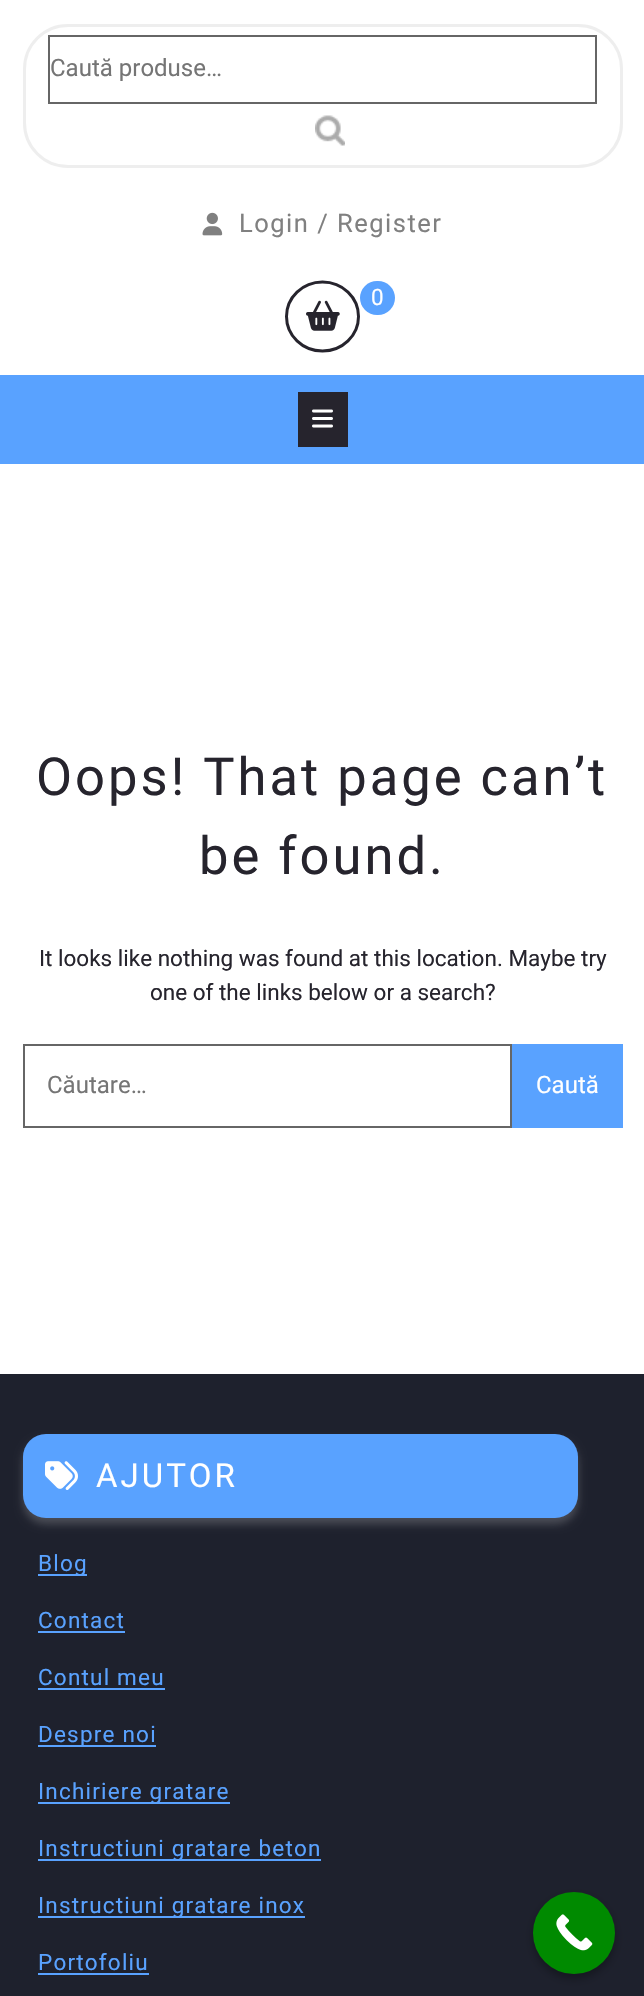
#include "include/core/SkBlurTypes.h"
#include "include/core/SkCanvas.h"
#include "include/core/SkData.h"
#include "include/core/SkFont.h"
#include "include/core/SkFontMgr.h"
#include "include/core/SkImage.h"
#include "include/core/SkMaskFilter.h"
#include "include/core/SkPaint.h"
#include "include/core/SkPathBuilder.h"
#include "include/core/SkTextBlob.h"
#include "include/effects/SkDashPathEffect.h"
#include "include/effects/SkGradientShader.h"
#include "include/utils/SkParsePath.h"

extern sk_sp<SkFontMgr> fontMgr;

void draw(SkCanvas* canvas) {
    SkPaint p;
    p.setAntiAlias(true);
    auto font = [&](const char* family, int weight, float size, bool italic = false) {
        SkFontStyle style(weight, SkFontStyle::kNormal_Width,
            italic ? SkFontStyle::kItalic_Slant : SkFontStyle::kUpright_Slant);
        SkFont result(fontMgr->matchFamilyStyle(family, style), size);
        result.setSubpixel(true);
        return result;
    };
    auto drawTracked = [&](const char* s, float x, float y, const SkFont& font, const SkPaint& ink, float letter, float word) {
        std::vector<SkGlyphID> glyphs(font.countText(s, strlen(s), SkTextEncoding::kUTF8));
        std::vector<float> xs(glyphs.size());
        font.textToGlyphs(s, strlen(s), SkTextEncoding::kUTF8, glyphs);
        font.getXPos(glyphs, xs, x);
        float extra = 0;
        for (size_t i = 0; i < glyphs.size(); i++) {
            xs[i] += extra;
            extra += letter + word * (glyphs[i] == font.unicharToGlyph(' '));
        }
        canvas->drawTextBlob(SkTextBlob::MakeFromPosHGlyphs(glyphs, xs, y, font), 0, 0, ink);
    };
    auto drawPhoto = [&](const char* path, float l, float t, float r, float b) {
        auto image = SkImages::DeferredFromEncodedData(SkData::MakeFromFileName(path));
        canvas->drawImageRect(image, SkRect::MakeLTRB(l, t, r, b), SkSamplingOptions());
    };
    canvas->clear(0xFFFFFFFF);
    p.setStyle(SkPaint::kStroke_Style);
    p.setStrokeWidth(3);
    p.setColor(0xFFEEEEEE);
    canvas->drawRoundRect(SkRect::MakeLTRB(24.5f, 25.5f, 621.5f, 166.5f), 43.5f, 43.5f, p);
    p.setStrokeWidth(2);
    p.setColor(0xFF666666);
    canvas->drawRect(SkRect::MakeLTRB(49, 36, 596, 103), p);
    auto font1 = font("Roboto", 400, 24);
    p.setStyle(SkPaint::kFill_Style);
    p.setColor(0xFF757575);
    canvas->drawString("Caută produse…", 50, 76, font1, p);
    drawPhoto("media/1.png", 315, 115, 345, 146);
    drawPhoto("media/2.png", 202, 212, 223, 236);
    auto font2 = font("Roboto", 400, 25.5f);
    p.setColor(0xFF808080);
    drawTracked("Login / Register", 239, 232, font2, p, 1.5f, 0);
    p.setStyle(SkPaint::kStroke_Style);
    p.setStrokeWidth(3);
    p.setColor(0xFF26242D);
    canvas->drawPath(SkPathBuilder().moveTo(322.5f, 282).cubicTo(342.5f, 282, 358.5f, 297.5f, 358.5f, 316.5f).cubicTo(358.5f, 335.5f, 342.5f, 351, 322.5f, 351).cubicTo(302.5f, 351, 286.5f, 335.5f, 286.5f, 316.5f).cubicTo(286.5f, 297.5f, 302.5f, 282, 322.5f, 282).close().detach(), p);
    drawPhoto("media/3.png", 306, 300, 340, 331);
    p.setStyle(SkPaint::kFill_Style);
    p.setColor(0xFF59A2FF);
    canvas->drawRoundRect(SkRect::MakeLTRB(360, 281, 395, 315), 17, 17, p);
    auto font3 = font("Roboto", 400, 22.5f);
    p.setColor(0xFFFFFFFF);
    canvas->drawString("0", 371, 305, font3, p);
    p.setColor(0xFF59A2FF);
    canvas->drawRect(SkRect::MakeLTRB(0, 375, 644, 464), p);
    p.setColor(0xFF26242D);
    canvas->drawRect(SkRect::MakeLTRB(298, 392, 348, 447), p);
    drawPhoto("media/4.png", 312, 409, 333, 428);
    auto font4 = font("Roboto", 400, 52.5f);
    drawTracked("Oops! That page can’t", 36, 795, font4, p, 3, 0);
    drawTracked("be found.", 199, 874, font4, p, 3, 0);
    canvas->drawString("It looks like nothing was found at this location. Maybe try", 39, 966, font3, p);
    canvas->drawString("one of the links below or a search?", 150, 1000, font3, p);
    p.setStyle(SkPaint::kStroke_Style);
    p.setStrokeWidth(2);
    p.setColor(0xFF666666);
    canvas->drawRect(SkRect::MakeLTRB(24, 1045, 511, 1127), p);
    p.setStyle(SkPaint::kFill_Style);
    p.setColor(0xFF757575);
    canvas->drawString("Căutare…", 47, 1093, font1, p);
    p.setColor(0xFF59A2FF);
    canvas->drawRect(SkRect::MakeLTRB(512, 1044, 623, 1128), p);
    p.setColor(0xFFFFFFFF);
    canvas->drawString("Caută", 536, 1093, font1, p);
    p.setColor(0xFF1E212D);
    canvas->drawRect(SkRect::MakeLTRB(0, 1374, 644, 1996), p);
    p.setColor(0x33FFFFFF);
    p.setMaskFilter(SkMaskFilter::MakeBlur(kNormal_SkBlurStyle, 4.5f));
    canvas->drawRoundRect(SkRect::MakeLTRB(23, 1440, 578, 1524), 23, 23, p);
    p.setMaskFilter(nullptr);
    p.setColor(0xFF59A2FF);
    canvas->drawRoundRect(SkRect::MakeLTRB(23, 1434, 578, 1518), 23, 23, p);
    drawPhoto("media/5.png", 45, 1461, 78, 1490);
    auto font5 = font("Roboto", 400, 33);
    p.setColor(0xFFFFFFFF);
    drawTracked("AJUTOR", 96, 1487, font5, p, 3, 0);
    p.setColor(0xFF59A2FF);
    canvas->drawRect(SkRect::MakeLTRB(38, 1574, 87, 1576), p);
    drawTracked("Blog", 38, 1571, font3, p, 1.2f, 0);
    drawTracked("Contact", 38, 1628, font3, p, 1.2f, 0);
    canvas->drawRect(SkRect::MakeLTRB(38, 1631, 125, 1633), p);
    drawTracked("Contul meu", 38, 1685, font3, p, 1.2f, 0);
    canvas->drawRect(SkRect::MakeLTRB(38, 1688, 165, 1690), p);
    canvas->drawRect(SkRect::MakeLTRB(38, 1745, 156, 1747), p);
    drawTracked("Despre noi", 38, 1742, font3, p, 1.2f, 0);
    canvas->drawRect(SkRect::MakeLTRB(38, 1802, 230, 1804), p);
    drawTracked("Inchiriere gratare", 38, 1799, font3, p, 1.2f, 0);
    canvas->drawRect(SkRect::MakeLTRB(38, 1859, 321, 1861), p);
    drawTracked("Instructiuni gratare beton", 38, 1856, font3, p, 1.2f, 0);
    canvas->drawRect(SkRect::MakeLTRB(38, 1916, 305, 1918), p);
    drawTracked("Instructiuni gratare inox", 38, 1913, font3, p, 1.2f, 0);
    drawTracked("Portofoliu", 38, 1970, font3, p, 1.2f, 0);
    canvas->drawRect(SkRect::MakeLTRB(38, 1973, 149, 1975), p);
    p.setColor(0x4D000000);
    p.setMaskFilter(SkMaskFilter::MakeBlur(kNormal_SkBlurStyle, 4.5f));
    canvas->drawRoundRect(SkRect::MakeLTRB(533, 1896, 615, 1979), 41, 41, p);
    p.setMaskFilter(nullptr);
    p.setColor(0xFF008A00);
    canvas->drawCircle(574, 1933, 41, p);
    drawPhoto("media/6.png", 556, 1914, 593, 1951);
}
